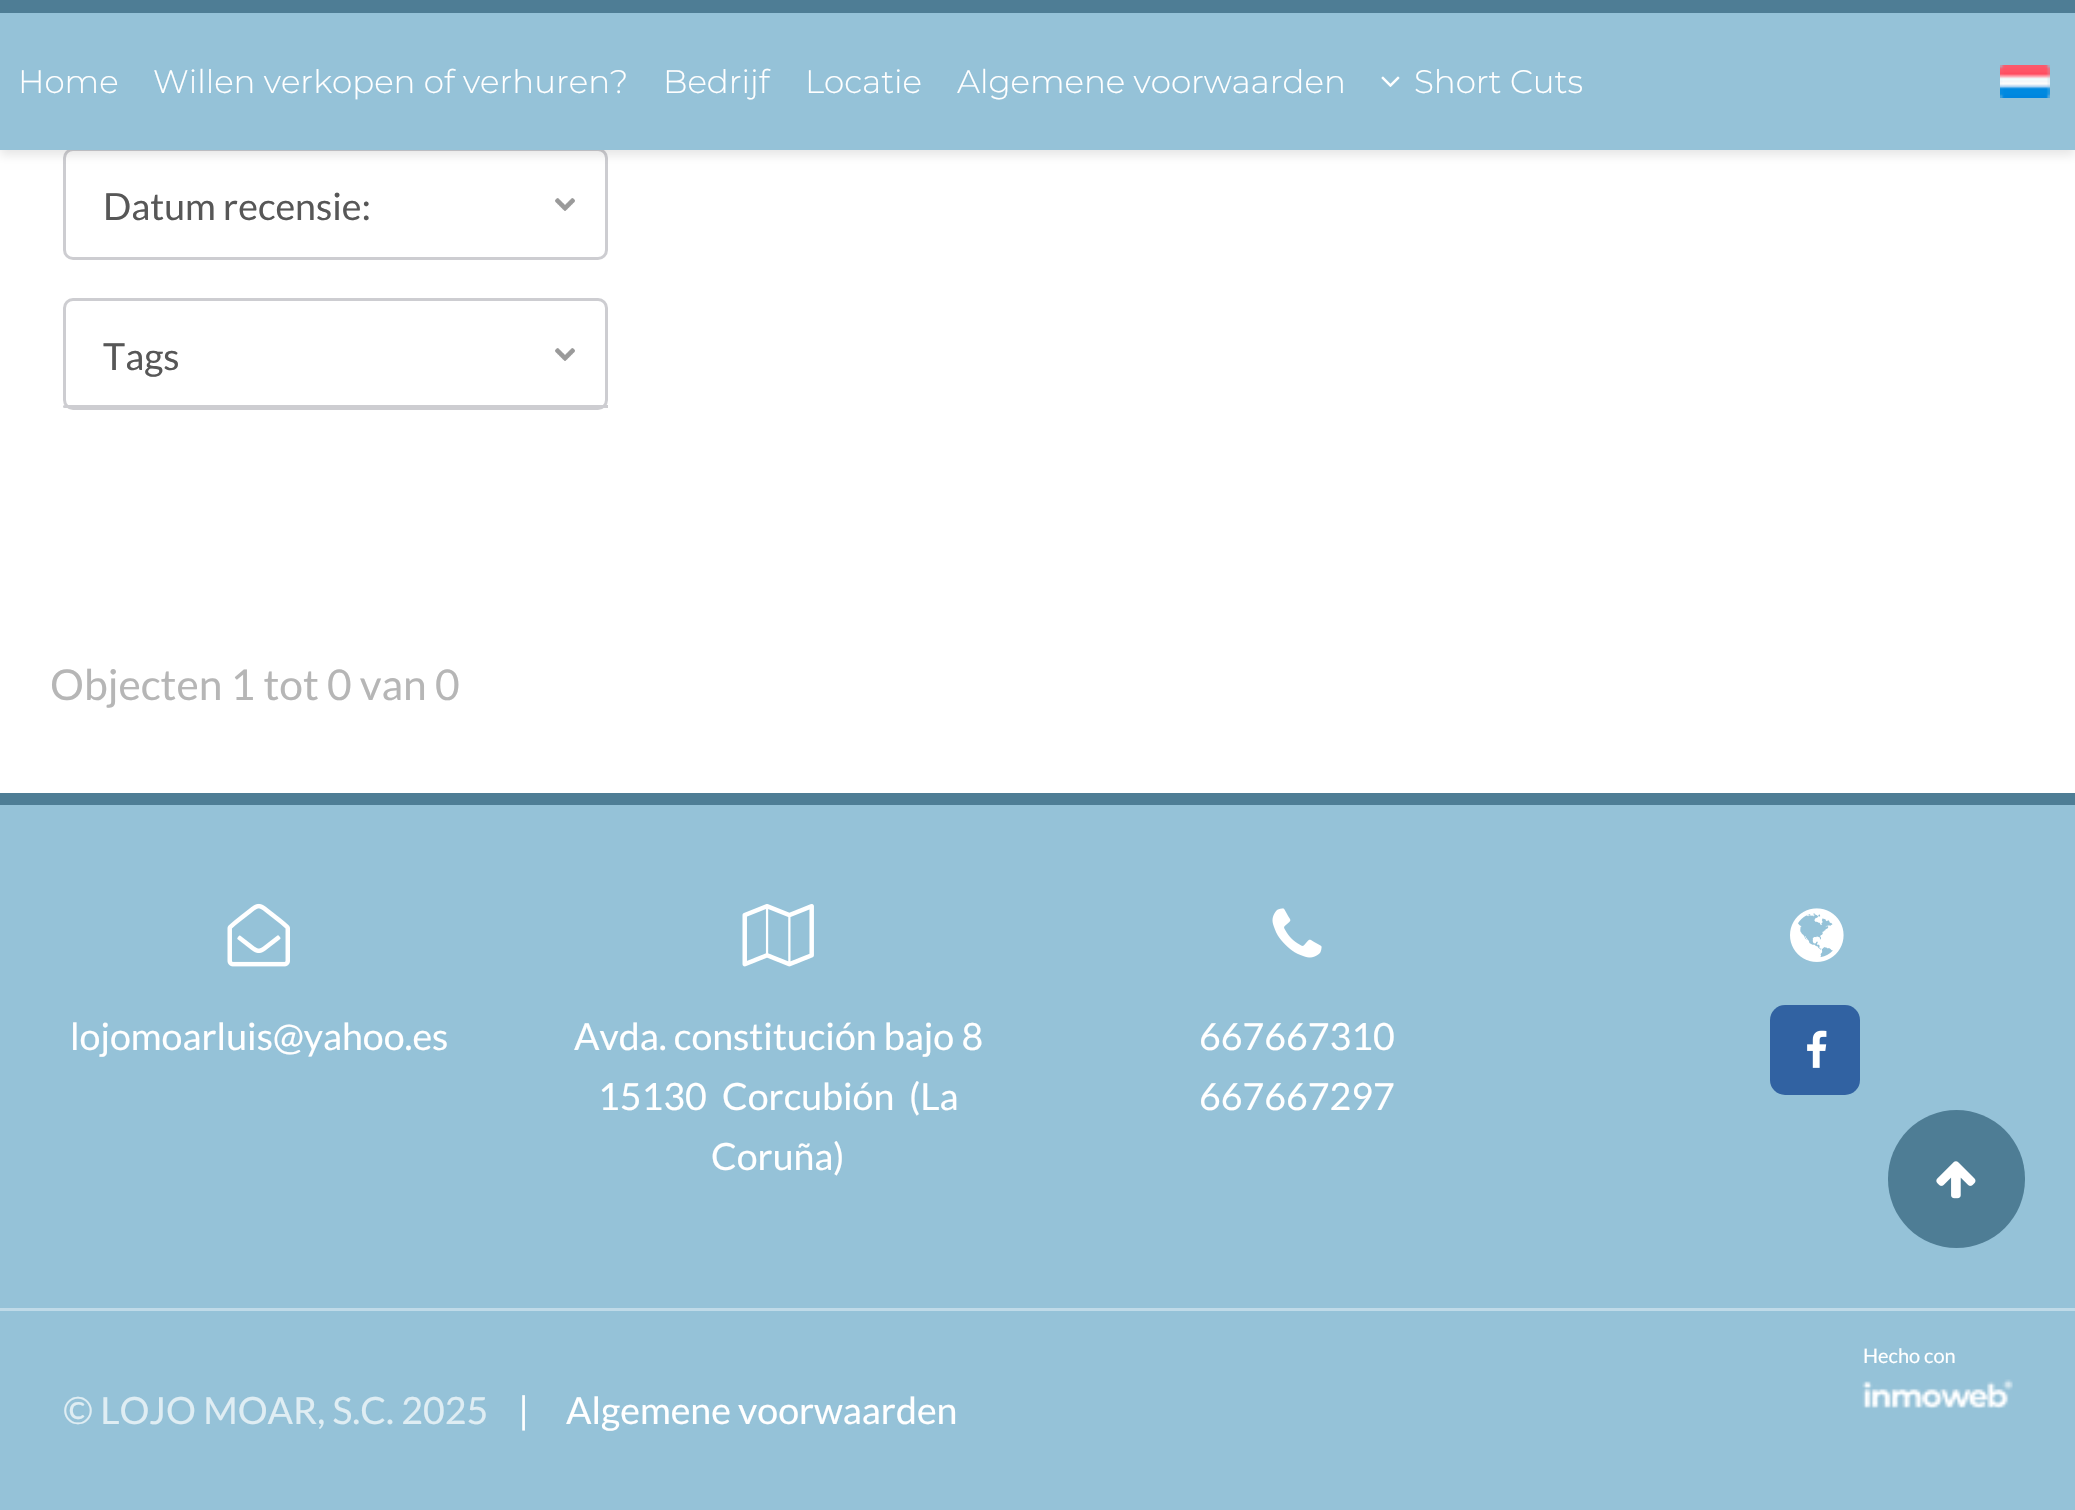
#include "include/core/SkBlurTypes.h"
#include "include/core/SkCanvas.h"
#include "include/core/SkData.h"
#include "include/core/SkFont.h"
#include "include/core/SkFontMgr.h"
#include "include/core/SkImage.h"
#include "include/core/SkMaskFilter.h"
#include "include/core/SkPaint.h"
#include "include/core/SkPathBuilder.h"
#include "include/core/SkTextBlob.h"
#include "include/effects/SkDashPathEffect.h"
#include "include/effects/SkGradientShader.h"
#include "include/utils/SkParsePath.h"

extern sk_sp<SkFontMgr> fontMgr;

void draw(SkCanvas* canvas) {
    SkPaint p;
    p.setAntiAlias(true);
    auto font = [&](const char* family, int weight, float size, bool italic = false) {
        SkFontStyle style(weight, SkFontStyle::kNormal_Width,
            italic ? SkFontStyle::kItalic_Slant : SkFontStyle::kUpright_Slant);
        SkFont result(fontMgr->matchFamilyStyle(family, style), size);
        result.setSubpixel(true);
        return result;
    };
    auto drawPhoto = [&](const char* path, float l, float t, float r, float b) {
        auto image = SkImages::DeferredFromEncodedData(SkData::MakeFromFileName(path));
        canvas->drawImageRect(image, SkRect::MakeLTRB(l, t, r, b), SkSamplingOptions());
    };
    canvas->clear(0xFFFFFFFF);
    drawPhoto("media/3.png", 555, 198, 575, 211);
    p.setStyle(SkPaint::kStroke_Style);
    p.setStrokeWidth(3);
    p.setColor(0xFFCDCDD1);
    canvas->drawRoundRect(SkRect::MakeLTRB(64.5f, 149.5f, 606.5f, 258.5f), 8.5f, 8.5f, p);
    p.setStyle(SkPaint::kFill_Style);
    p.setColor(0x1A000000);
    p.setMaskFilter(SkMaskFilter::MakeBlur(kNormal_SkBlurStyle, 5));
    canvas->drawRect(SkRect::MakeLTRB(0, 5, 2075, 155), p);
    p.setMaskFilter(nullptr);
    p.setColor(0xFF95C2D8);
    canvas->drawRect(SkRect::MakeLTRB(0, 13, 2075, 150), p);
    p.setColor(0xFF4E7D95);
    canvas->drawRect(SkRect::MakeLTRB(0, 0, 2075, 13), p);
    auto font1 = font("Montserrat", 300, 32.5f);
    p.setColor(0xFFFFFFFF);
    {
        const struct { const char* s; float x, y; } items[] = {
            {"Home", 18, 93},
            {"Willen verkopen of verhuren?", 153, 93},
            {"Bedrijf", 663, 93},
            {"Locatie", 805, 93},
            {"Algemene voorwaarden", 957, 93},
        };
        for (auto [s, x, y] : items) {
            canvas->drawString(s, x, y, font1, p);
        }
    }
    drawPhoto("media/1.png", 1381, 76, 1400, 87);
    canvas->drawString("Short Cuts", 1414, 93, font1, p);
    drawPhoto("media/2.png", 2000, 65, 2050, 98);
    auto font2 = font("Lato", 400, 37.5f);
    p.setColor(0xFF575757);
    canvas->drawString("Datum recensie:", 103, 220, font2, p);
    drawPhoto("media/3.png", 555, 348, 575, 361);
    p.setStyle(SkPaint::kStroke_Style);
    p.setColor(0xFFCDCDD1);
    canvas->drawRoundRect(SkRect::MakeLTRB(64.5f, 299.5f, 606.5f, 408.5f), 8.5f, 8.5f, p);
    p.setStyle(SkPaint::kFill_Style);
    p.setColor(0xFF575757);
    canvas->drawString("Tags", 103, 370, font2, p);
    p.setColor(0xFFFFFFFF);
    canvas->drawPath(SkPathBuilder().moveTo(63, 405).lineTo(608, 405).lineTo(608, 405.5f).cubicTo(608, 407, 607, 408, 605.5f, 408).lineTo(65.5f, 408).cubicTo(64, 408, 63, 407, 63, 405.5f).close().detach(), p);
    p.setColor(0xFFCDCDD1);
    canvas->drawRect(SkRect::MakeLTRB(65, 405, 608, 408), p);
    canvas->drawCircle(64.5f, 406.5f, 1.5f, p);
    auto font3 = font("Lato", 400, 42.5f);
    p.setColor(0xFFB6B6B6);
    canvas->drawString("Objecten 1 tot 0 van 0", 50, 700, font3, p);
    p.setColor(0xFF95C2D8);
    canvas->drawRect(SkRect::MakeLTRB(0, 805, 2075, 1510), p);
    p.setColor(0xFF4E7D95);
    canvas->drawRect(SkRect::MakeLTRB(0, 793, 2075, 805), p);
    drawPhoto("media/4.png", 227, 903, 290, 967);
    p.setColor(0xFFFFFFFF);
    canvas->drawString("lojomoarluis@yahoo.es", 70, 1050, font2, p);
    drawPhoto("media/5.png", 742, 904, 814, 967);
    {
        const struct { const char* s; float x, y; } items[] = {
            {"Avda. constitución bajo 8", 574, 1050},
            {"15130", 598, 1110},
            {"Corcubión", 722, 1110},
            {"(La", 909, 1110},
            {"Coruña)", 711, 1170},
        };
        for (auto [s, x, y] : items) {
            canvas->drawString(s, x, y, font2, p);
        }
    }
    drawPhoto("media/6.png", 1272, 908, 1322, 958);
    canvas->drawString("667667310", 1199, 1050, font2, p);
    canvas->drawString("667667297", 1199, 1110, font2, p);
    drawPhoto("media/7.png", 1790, 908, 1844, 962);
    p.setColor(0xFF3162A2);
    canvas->drawRoundRect(SkRect::MakeLTRB(1770, 1005, 1860, 1095), 15, 15, p);
    drawPhoto("media/8.png", 1807, 1030, 1827, 1068);
    p.setColor(0xFF4E7D95);
    canvas->drawRoundRect(SkRect::MakeLTRB(1888, 1110, 2025, 1248), 68.5f, 68.5f, p);
    drawPhoto("media/9.png", 1936, 1161, 1976, 1199);
    p.setColor(0xFFBFDAE8);
    canvas->drawRect(SkRect::MakeLTRB(0, 1308, 2075, 1311), p);
    auto font4 = font("Lato", 400, 20);
    p.setColor(0xFFFFFFFF);
    canvas->drawString("Hecho con", 1863, 1363, font4, p);
    drawPhoto("media/10.png", 1862, 1379, 2013, 1409);
    p.setColor(0xFFDFEDF3);
    canvas->drawString("© LOJO MOAR, S.C. 2025", 63, 1424, font2, p);
    p.setColor(0xFFFFFFFF);
    canvas->drawString("|", 518, 1424, font2, p);
    canvas->drawString("Algemene voorwaarden", 566, 1424, font2, p);
}
